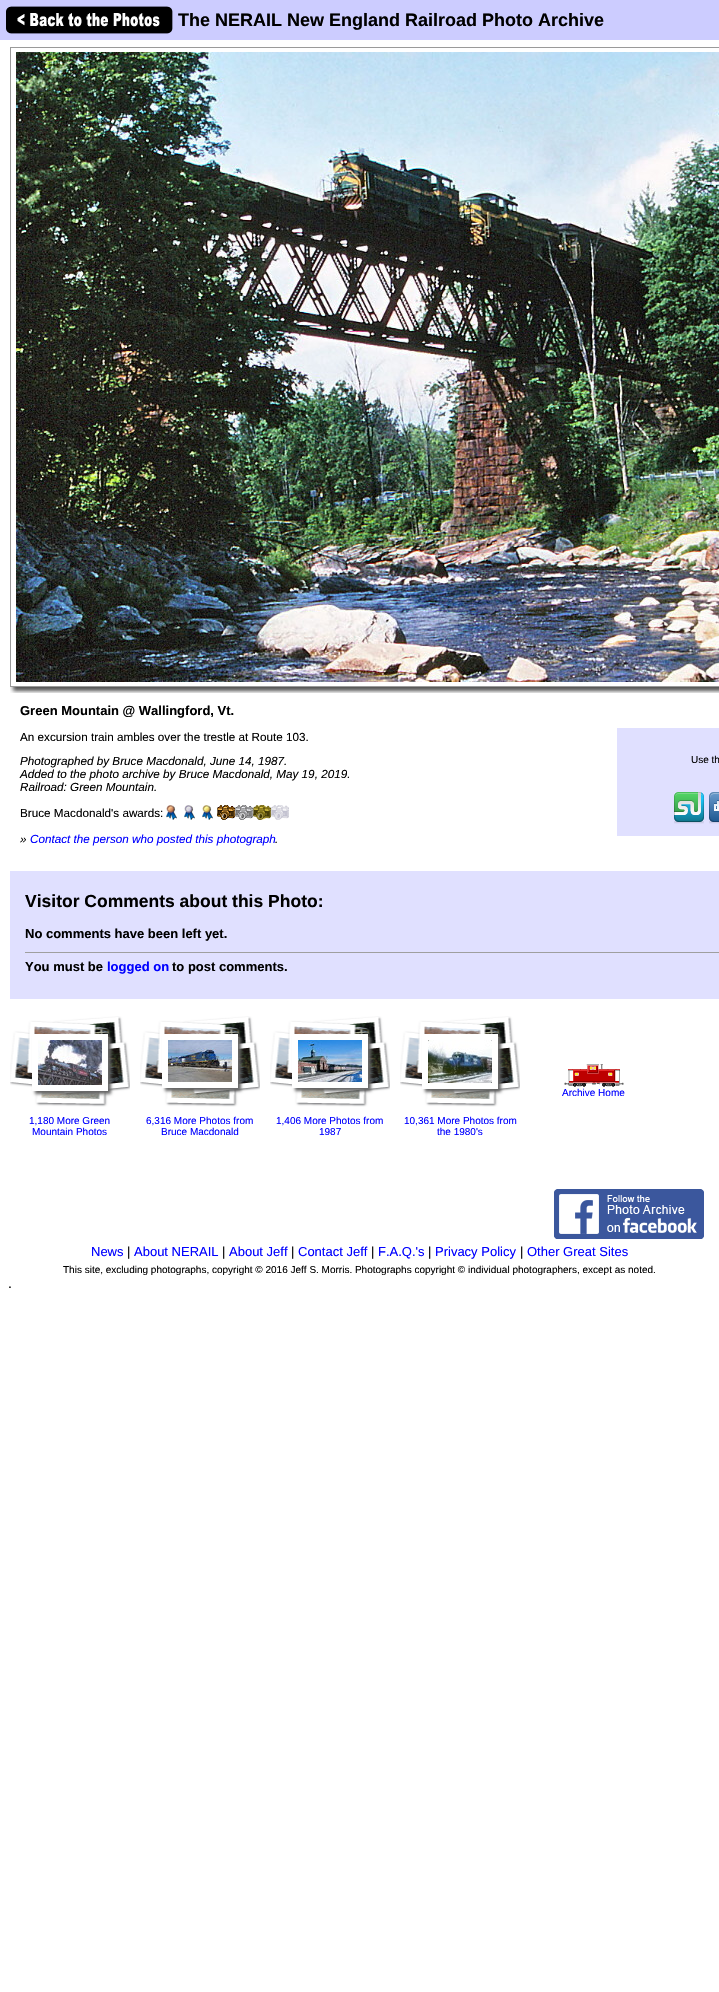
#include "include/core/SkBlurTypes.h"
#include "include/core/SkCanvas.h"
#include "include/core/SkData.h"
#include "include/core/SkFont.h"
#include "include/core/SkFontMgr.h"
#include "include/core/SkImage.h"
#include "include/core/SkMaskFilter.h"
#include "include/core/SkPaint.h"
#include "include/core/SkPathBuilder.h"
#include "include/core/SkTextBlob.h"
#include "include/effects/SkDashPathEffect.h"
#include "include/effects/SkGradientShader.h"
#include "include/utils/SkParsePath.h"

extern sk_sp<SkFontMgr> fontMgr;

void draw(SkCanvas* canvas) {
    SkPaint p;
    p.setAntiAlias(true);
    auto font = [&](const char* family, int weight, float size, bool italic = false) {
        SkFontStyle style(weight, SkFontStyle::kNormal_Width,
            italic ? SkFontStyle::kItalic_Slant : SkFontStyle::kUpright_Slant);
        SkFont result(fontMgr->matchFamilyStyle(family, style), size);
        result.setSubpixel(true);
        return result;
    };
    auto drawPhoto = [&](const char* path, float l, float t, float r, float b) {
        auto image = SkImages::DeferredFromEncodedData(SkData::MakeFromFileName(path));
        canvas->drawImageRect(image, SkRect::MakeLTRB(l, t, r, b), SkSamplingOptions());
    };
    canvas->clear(0xFFFFFFFF);
    p.setColor(0xFFCCCCFF);
    canvas->drawRect(SkRect::MakeLTRB(0, 0, 719, 40), p);
    drawPhoto("media/1.png", 6, 6, 173, 34);
    auto font1 = font("Liberation Sans", 700, 18);
    p.setColor(0xFF000000);
    canvas->drawString("The NERAIL New England Railroad Photo Archive", 178, 26, font1, p);
    p.setStyle(SkPaint::kStroke_Style);
    p.setStrokeWidth(1);
    p.setColor(0xFF9A9A9A);
    canvas->drawRect(SkRect::MakeLTRB(10.5f, 47.5f, 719.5f, 686.5f), p);
    drawPhoto("media/2.png", 16, 52, 719, 682);
    drawPhoto("media/3.png", 10, 687, 719, 693);
    auto font2 = font("Liberation Sans", 700, 13);
    p.setStyle(SkPaint::kFill_Style);
    p.setColor(0xFF000000);
    canvas->drawString("Green Mountain @ Wallingford, Vt.", 20, 715, font2, p);
    auto font3 = font("Liberation Sans", 400, 11.7f);
    canvas->drawString("An excursion train ambles over the trestle at Route 103.", 20, 741, font3, p);
    auto font4 = font("Liberation Sans", 400, 11.7f, true);
    {
        const struct { const char* s; float x, y; } items[] = {
            {"Photographed by Bruce Macdonald, June 14, 1987.", 20, 765},
            {"Added to the photo archive by Bruce Macdonald, May 19, 2019.", 20, 778},
            {"Railroad: Green Mountain.", 20, 791},
        };
        for (auto [s, x, y] : items) {
            canvas->drawString(s, x, y, font4, p);
        }
    }
    canvas->drawString("Bruce Macdonald's awards:", 20, 817, font3, p);
    drawPhoto("media/4.png", 166, 805, 177, 820);
    drawPhoto("media/5.png", 184, 805, 195, 820);
    drawPhoto("media/6.png", 202, 805, 213, 820);
    drawPhoto("media/7.png", 217, 805, 235, 820);
    drawPhoto("media/8.png", 235, 805, 253, 820);
    drawPhoto("media/9.png", 253, 805, 271, 820);
    drawPhoto("media/10.png", 271, 805, 289, 820);
    canvas->drawString("»", 20, 843, font4, p);
    p.setColor(0xFF0000FF);
    canvas->drawString("Contact the person who posted this photograph", 30, 843, font4, p);
    p.setColor(0xFF000000);
    canvas->drawString(".", 275, 843, font4, p);
    p.setColor(0xFFE0E0FF);
    canvas->drawRect(SkRect::MakeLTRB(617, 728, 719, 836), p);
    auto font5 = font("Liberation Sans", 400, 10);
    p.setColor(0xFF000000);
    canvas->drawString("Use th", 691, 763, font5, p);
    drawPhoto("media/11.png", 674, 792, 704, 824);
    drawPhoto("media/12.png", 709, 792, 719, 824);
    p.setColor(0xFFE0E0FF);
    canvas->drawRect(SkRect::MakeLTRB(10, 871, 719, 999), p);
    auto font6 = font("Liberation Sans", 700, 17.5f);
    p.setColor(0xFF000000);
    canvas->drawString("Visitor Comments about this Photo:", 25, 907, font6, p);
    canvas->drawString("No comments have been left yet.", 25, 938, font2, p);
    p.setColor(0xFF9F9F9F);
    canvas->drawRect(SkRect::MakeLTRB(25, 952, 719, 953), p);
    p.setColor(0xFF000000);
    canvas->drawString("You must be", 25, 971, font2, p);
    p.setColor(0xFF0000FF);
    canvas->drawString("logged on", 107, 971, font2, p);
    p.setColor(0xFF000000);
    canvas->drawString("to post comments.", 172, 971, font2, p);
    drawPhoto("media/13.png", 564, 1064, 624, 1087);
    p.setColor(0xFF0000FF);
    canvas->drawString("Archive Home", 562, 1096, font5, p);
    drawPhoto("media/14.png", 10, 1016, 130, 1107);
    p.setColor(0xFF666666);
    p.setMaskFilter(SkMaskFilter::MakeBlur(kNormal_SkBlurStyle, 1.5f));
    canvas->drawRect(SkRect::MakeLTRB(35, 1037, 111, 1094), p);
    p.setMaskFilter(nullptr);
    p.setColor(0xFFFFFFFF);
    canvas->drawRect(SkRect::MakeLTRB(32, 1034, 108, 1091), p);
    drawPhoto("media/15.png", 38, 1040, 102, 1085);
    p.setColor(0xFF0000FF);
    canvas->drawString("1,180 More Green", 29, 1124, font5, p);
    canvas->drawString("Mountain Photos", 32, 1135, font5, p);
    drawPhoto("media/14.png", 140, 1016, 260, 1107);
    p.setColor(0xFF666666);
    p.setMaskFilter(SkMaskFilter::MakeBlur(kNormal_SkBlurStyle, 1.5f));
    canvas->drawRect(SkRect::MakeLTRB(165, 1037, 241, 1091), p);
    p.setMaskFilter(nullptr);
    p.setColor(0xFFFFFFFF);
    canvas->drawRect(SkRect::MakeLTRB(162, 1034, 238, 1088), p);
    drawPhoto("media/16.png", 168, 1040, 232, 1082);
    p.setColor(0xFF0000FF);
    canvas->drawString("6,316 More Photos from", 146, 1124, font5, p);
    canvas->drawString("Bruce Macdonald", 161, 1135, font5, p);
    drawPhoto("media/14.png", 270, 1016, 390, 1107);
    p.setColor(0xFF666666);
    p.setMaskFilter(SkMaskFilter::MakeBlur(kNormal_SkBlurStyle, 1.5f));
    canvas->drawRect(SkRect::MakeLTRB(295, 1037, 371, 1091), p);
    p.setMaskFilter(nullptr);
    p.setColor(0xFFFFFFFF);
    canvas->drawRect(SkRect::MakeLTRB(292, 1034, 368, 1088), p);
    drawPhoto("media/17.png", 298, 1040, 362, 1082);
    p.setColor(0xFF0000FF);
    canvas->drawString("1,406 More Photos from", 276, 1124, font5, p);
    canvas->drawString("1987", 319, 1135, font5, p);
    drawPhoto("media/14.png", 400, 1016, 520, 1107);
    p.setColor(0xFF666666);
    p.setMaskFilter(SkMaskFilter::MakeBlur(kNormal_SkBlurStyle, 1.5f));
    canvas->drawRect(SkRect::MakeLTRB(425, 1037, 501, 1092), p);
    p.setMaskFilter(nullptr);
    p.setColor(0xFFFFFFFF);
    canvas->drawRect(SkRect::MakeLTRB(422, 1034, 498, 1089), p);
    drawPhoto("media/18.png", 428, 1040, 492, 1083);
    p.setColor(0xFF0000FF);
    canvas->drawString("10,361 More Photos from", 404, 1124, font5, p);
    canvas->drawString("the 1980's", 437, 1135, font5, p);
    drawPhoto("media/19.png", 554, 1189, 704, 1239);
    auto font7 = font("Liberation Sans", 400, 13);
    canvas->drawString("News", 91, 1256, font7, p);
    p.setColor(0xFF000000);
    canvas->drawString("|", 127, 1256, font7, p);
    p.setColor(0xFF0000FF);
    canvas->drawString("About NERAIL", 134, 1256, font7, p);
    p.setColor(0xFF000000);
    canvas->drawString("|", 222, 1256, font7, p);
    p.setColor(0xFF0000FF);
    canvas->drawString("About Jeff", 229, 1256, font7, p);
    p.setColor(0xFF000000);
    canvas->drawString("|", 291, 1256, font7, p);
    p.setColor(0xFF0000FF);
    canvas->drawString("Contact Jeff", 298, 1256, font7, p);
    p.setColor(0xFF000000);
    canvas->drawString("|", 371, 1256, font7, p);
    p.setColor(0xFF0000FF);
    canvas->drawString("F.A.Q.'s", 378, 1256, font7, p);
    p.setColor(0xFF000000);
    canvas->drawString("|", 428, 1256, font7, p);
    p.setColor(0xFF0000FF);
    canvas->drawString("Privacy Policy", 435, 1256, font7, p);
    p.setColor(0xFF000000);
    canvas->drawString("|", 520, 1256, font7, p);
    p.setColor(0xFF0000FF);
    canvas->drawString("Other Great Sites", 527, 1256, font7, p);
    p.setColor(0xFF000000);
    canvas->drawString("This site, excluding photographs, copyright © 2016 Jeff S. Morris. Photographs copyright © individual photographers, except as noted.", 63, 1273, font5, p);
    auto font8 = font("Liberation Sans", 400, 14);
    canvas->drawString(".", 8, 1288, font8, p);
}
